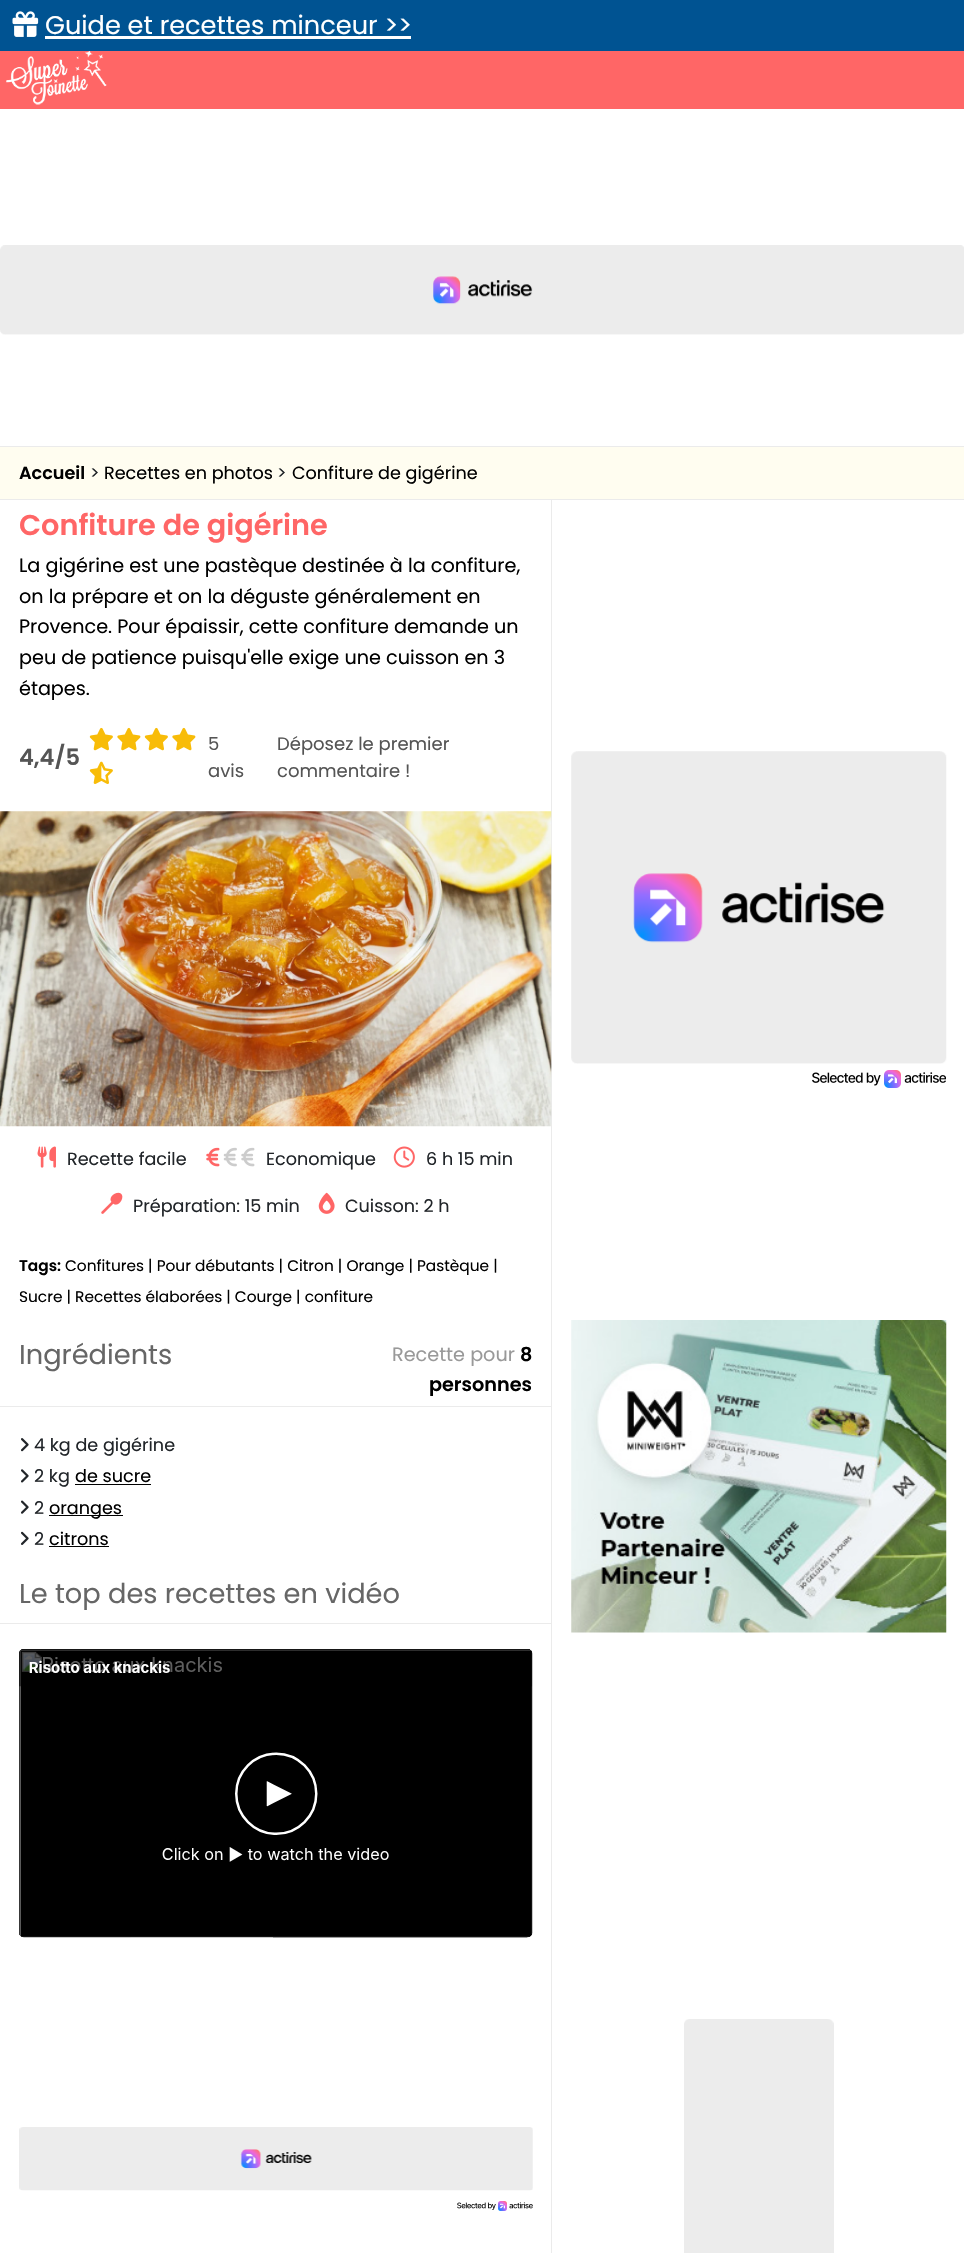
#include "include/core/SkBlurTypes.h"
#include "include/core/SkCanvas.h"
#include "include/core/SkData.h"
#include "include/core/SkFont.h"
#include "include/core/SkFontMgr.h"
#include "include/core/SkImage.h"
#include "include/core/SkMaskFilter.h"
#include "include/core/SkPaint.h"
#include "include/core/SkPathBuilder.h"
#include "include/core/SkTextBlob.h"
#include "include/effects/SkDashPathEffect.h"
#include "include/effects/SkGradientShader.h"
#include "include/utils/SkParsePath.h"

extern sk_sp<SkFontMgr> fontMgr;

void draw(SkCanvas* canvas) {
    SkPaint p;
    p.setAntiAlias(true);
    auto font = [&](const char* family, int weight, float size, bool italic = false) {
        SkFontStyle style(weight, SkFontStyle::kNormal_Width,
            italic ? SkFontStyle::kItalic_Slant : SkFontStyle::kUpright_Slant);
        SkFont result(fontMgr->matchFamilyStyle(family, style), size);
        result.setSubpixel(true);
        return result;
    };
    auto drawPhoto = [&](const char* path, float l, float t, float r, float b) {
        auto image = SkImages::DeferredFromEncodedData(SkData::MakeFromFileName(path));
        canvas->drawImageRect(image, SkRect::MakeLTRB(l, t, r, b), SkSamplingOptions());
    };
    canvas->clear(0xFFFF6666);
    p.setColor(0xFF005392);
    canvas->drawRect(SkRect::MakeLTRB(0, 0, 964, 51), p);
    drawPhoto("media/1.png", 12, 11, 39, 37);
    auto font1 = font("Poppins", 400, 25.6f);
    p.setColor(0xFFFFFFFF);
    canvas->drawString("Guide et recettes minceur >>", 45, 34, font1, p);
    canvas->drawRect(SkRect::MakeLTRB(45, 36, 411, 39), p);
    canvas->drawRect(SkRect::MakeLTRB(0, 109, 964, 2253), p);
    drawPhoto("media/2.png", 0, 245, 964, 335);
    p.setColor(0xFFFFFDF0);
    canvas->drawRect(SkRect::MakeLTRB(0, 447, 964, 499), p);
    p.setColor(0xFFEBEBEB);
    canvas->drawRect(SkRect::MakeLTRB(0, 446, 964, 447), p);
    auto font2 = font("Poppins", 600, 17.6f);
    p.setColor(0xFF000000);
    canvas->drawString("Accueil", 19, 479, font2, p);
    auto font3 = font("Poppins", 400, 17.6f);
    p.setColor(0xFF212529);
    canvas->drawString(">", 90, 479, font3, p);
    p.setColor(0xFF000000);
    canvas->drawString("Recettes en photos", 104, 479, font3, p);
    p.setColor(0xFF212529);
    canvas->drawString(">", 277, 479, font3, p);
    p.setColor(0xFF000000);
    canvas->drawString("Confiture de gigérine", 292, 479, font3, p);
    p.setColor(0xFFEBEBEB);
    canvas->drawRect(SkRect::MakeLTRB(0, 499, 964, 500), p);
    canvas->drawRect(SkRect::MakeLTRB(551, 499, 552, 2253), p);
    auto font4 = font("Poppins", 600, 28.75f);
    p.setColor(0xFFFF6666);
    canvas->drawString("Confiture de gigérine", 19, 535, font4, p);
    auto font5 = font("Poppins", 400, 19.2f);
    p.setColor(0xFF000000);
    {
        const struct { const char* s; float x, y; } items[] = {
            {"La gigérine est une pastèque destinée à la confiture,", 19, 572},
            {"on la prépare et on la déguste généralement en", 19, 603},
            {"Provence. Pour épaissir, cette confiture demande un", 19, 633},
            {"peu de patience puisqu'elle exige une cuisson en 3", 19, 664},
            {"étapes.", 19, 695},
        };
        for (auto [s, x, y] : items) {
            canvas->drawString(s, x, y, font5, p);
        }
    }
    auto font6 = font("Poppins", 600, 22.5f);
    p.setColor(0xFF555555);
    canvas->drawString("4,4/5", 19, 765, font6, p);
    drawPhoto("media/3.png", 89, 727, 113, 751);
    drawPhoto("media/4.png", 117, 727, 141, 751);
    drawPhoto("media/3.png", 144, 727, 168, 751);
    drawPhoto("media/4.png", 172, 727, 196, 751);
    drawPhoto("media/5.png", 89, 761, 113, 784);
    auto font7 = font("Poppins", 400, 18);
    {
        const struct { const char* s; float x, y; } items[] = {
            {"5", 208, 750},
            {"avis", 208, 777},
            {"Déposez le premier", 277, 750},
            {"commentaire !", 277, 777},
        };
        for (auto [s, x, y] : items) {
            canvas->drawString(s, x, y, font7, p);
        }
    }
    drawPhoto("media/6.png", 0, 811, 552, 1127);
    drawPhoto("media/7.png", 37, 1146, 56, 1168);
    p.setColor(0xFF212529);
    canvas->drawString("Recette facile", 67, 1165, font3, p);
    drawPhoto("media/8.png", 206, 1147, 220, 1167);
    drawPhoto("media/9.png", 223, 1147, 237, 1167);
    drawPhoto("media/10.png", 241, 1147, 255, 1167);
    canvas->drawString("Economique", 266, 1165, font3, p);
    drawPhoto("media/11.png", 393, 1146, 415, 1168);
    canvas->drawString("6 h 15 min", 426, 1165, font3, p);
    drawPhoto("media/12.png", 101, 1192, 123, 1214);
    canvas->drawString("Préparation: 15 min", 133, 1212, font3, p);
    drawPhoto("media/13.png", 318, 1192, 335, 1214);
    canvas->drawString("Cuisson: 2 h", 345, 1212, font3, p);
    auto font8 = font("Poppins", 600, 15.35f);
    p.setColor(0xFF000000);
    canvas->drawString("Tags:", 19, 1271, font8, p);
    auto font9 = font("Poppins", 400, 15.35f);
    canvas->drawString("Confitures | Pour débutants | Citron | Orange | Pastèque |", 65, 1271, font9, p);
    canvas->drawString("Sucre | Recettes élaborées | Courge | confiture", 19, 1302, font9, p);
    auto font10 = font("Poppins", 400, 27.25f);
    p.setColor(0xFF666666);
    canvas->drawString("Ingrédients", 19, 1364, font10, p);
    p.setColor(0xFF999999);
    canvas->drawString("Recette pour", 392, 1361, font5, p);
    auto font11 = font("Poppins", 600, 19.2f);
    p.setColor(0xFF000000);
    canvas->drawString("8", 520, 1361, font11, p);
    canvas->drawString("personnes", 429, 1391, font11, p);
    p.setColor(0xFFEBEBEB);
    canvas->drawRect(SkRect::MakeLTRB(0, 1406, 551, 1407), p);
    drawPhoto("media/14.png", 21, 1438, 29, 1452);
    p.setColor(0xFF212529);
    canvas->drawString("4 kg de gigérine", 34, 1451, font3, p);
    drawPhoto("media/15.png", 21, 1469, 29, 1483);
    canvas->drawString("2 kg", 34, 1482, font3, p);
    p.setColor(0xFF000000);
    canvas->drawString("de sucre", 75, 1482, font3, p);
    canvas->drawRect(SkRect::MakeLTRB(75, 1484, 151, 1485), p);
    drawPhoto("media/16.png", 21, 1500, 29, 1514);
    p.setColor(0xFF212529);
    canvas->drawString("2", 34, 1514, font3, p);
    p.setColor(0xFF000000);
    canvas->drawRect(SkRect::MakeLTRB(49, 1515, 123, 1516), p);
    canvas->drawString("oranges", 49, 1514, font3, p);
    drawPhoto("media/17.png", 21, 1531, 29, 1545);
    p.setColor(0xFF212529);
    canvas->drawString("2", 34, 1545, font3, p);
    p.setColor(0xFF000000);
    canvas->drawString("citrons", 49, 1545, font3, p);
    canvas->drawRect(SkRect::MakeLTRB(49, 1546, 109, 1547), p);
    p.setColor(0xFF666666);
    canvas->drawString("Le top des recettes en vidéo", 19, 1603, font10, p);
    p.setColor(0xFFEBEBEB);
    canvas->drawRect(SkRect::MakeLTRB(0, 1623, 551, 1624), p);
    drawPhoto("media/18.png", 19, 1649, 533, 1938);
    drawPhoto("media/19.png", 19, 2127, 533, 2191);
    drawPhoto("media/21.png", 457, 2202, 533, 2210);
    drawPhoto("media/20.png", 498, 2201, 507, 2211);
    drawPhoto("media/22.png", 571, 751, 947, 1064);
    drawPhoto("media/24.png", 812, 1072, 946, 1086);
    drawPhoto("media/23.png", 884, 1070, 901, 1088);
    drawPhoto("media/25.png", 571, 1320, 947, 1633);
    drawPhoto("media/26.png", 684, 2019, 834, 2253);
    drawPhoto("media/27.png", 6, 51, 107, 105);
}
